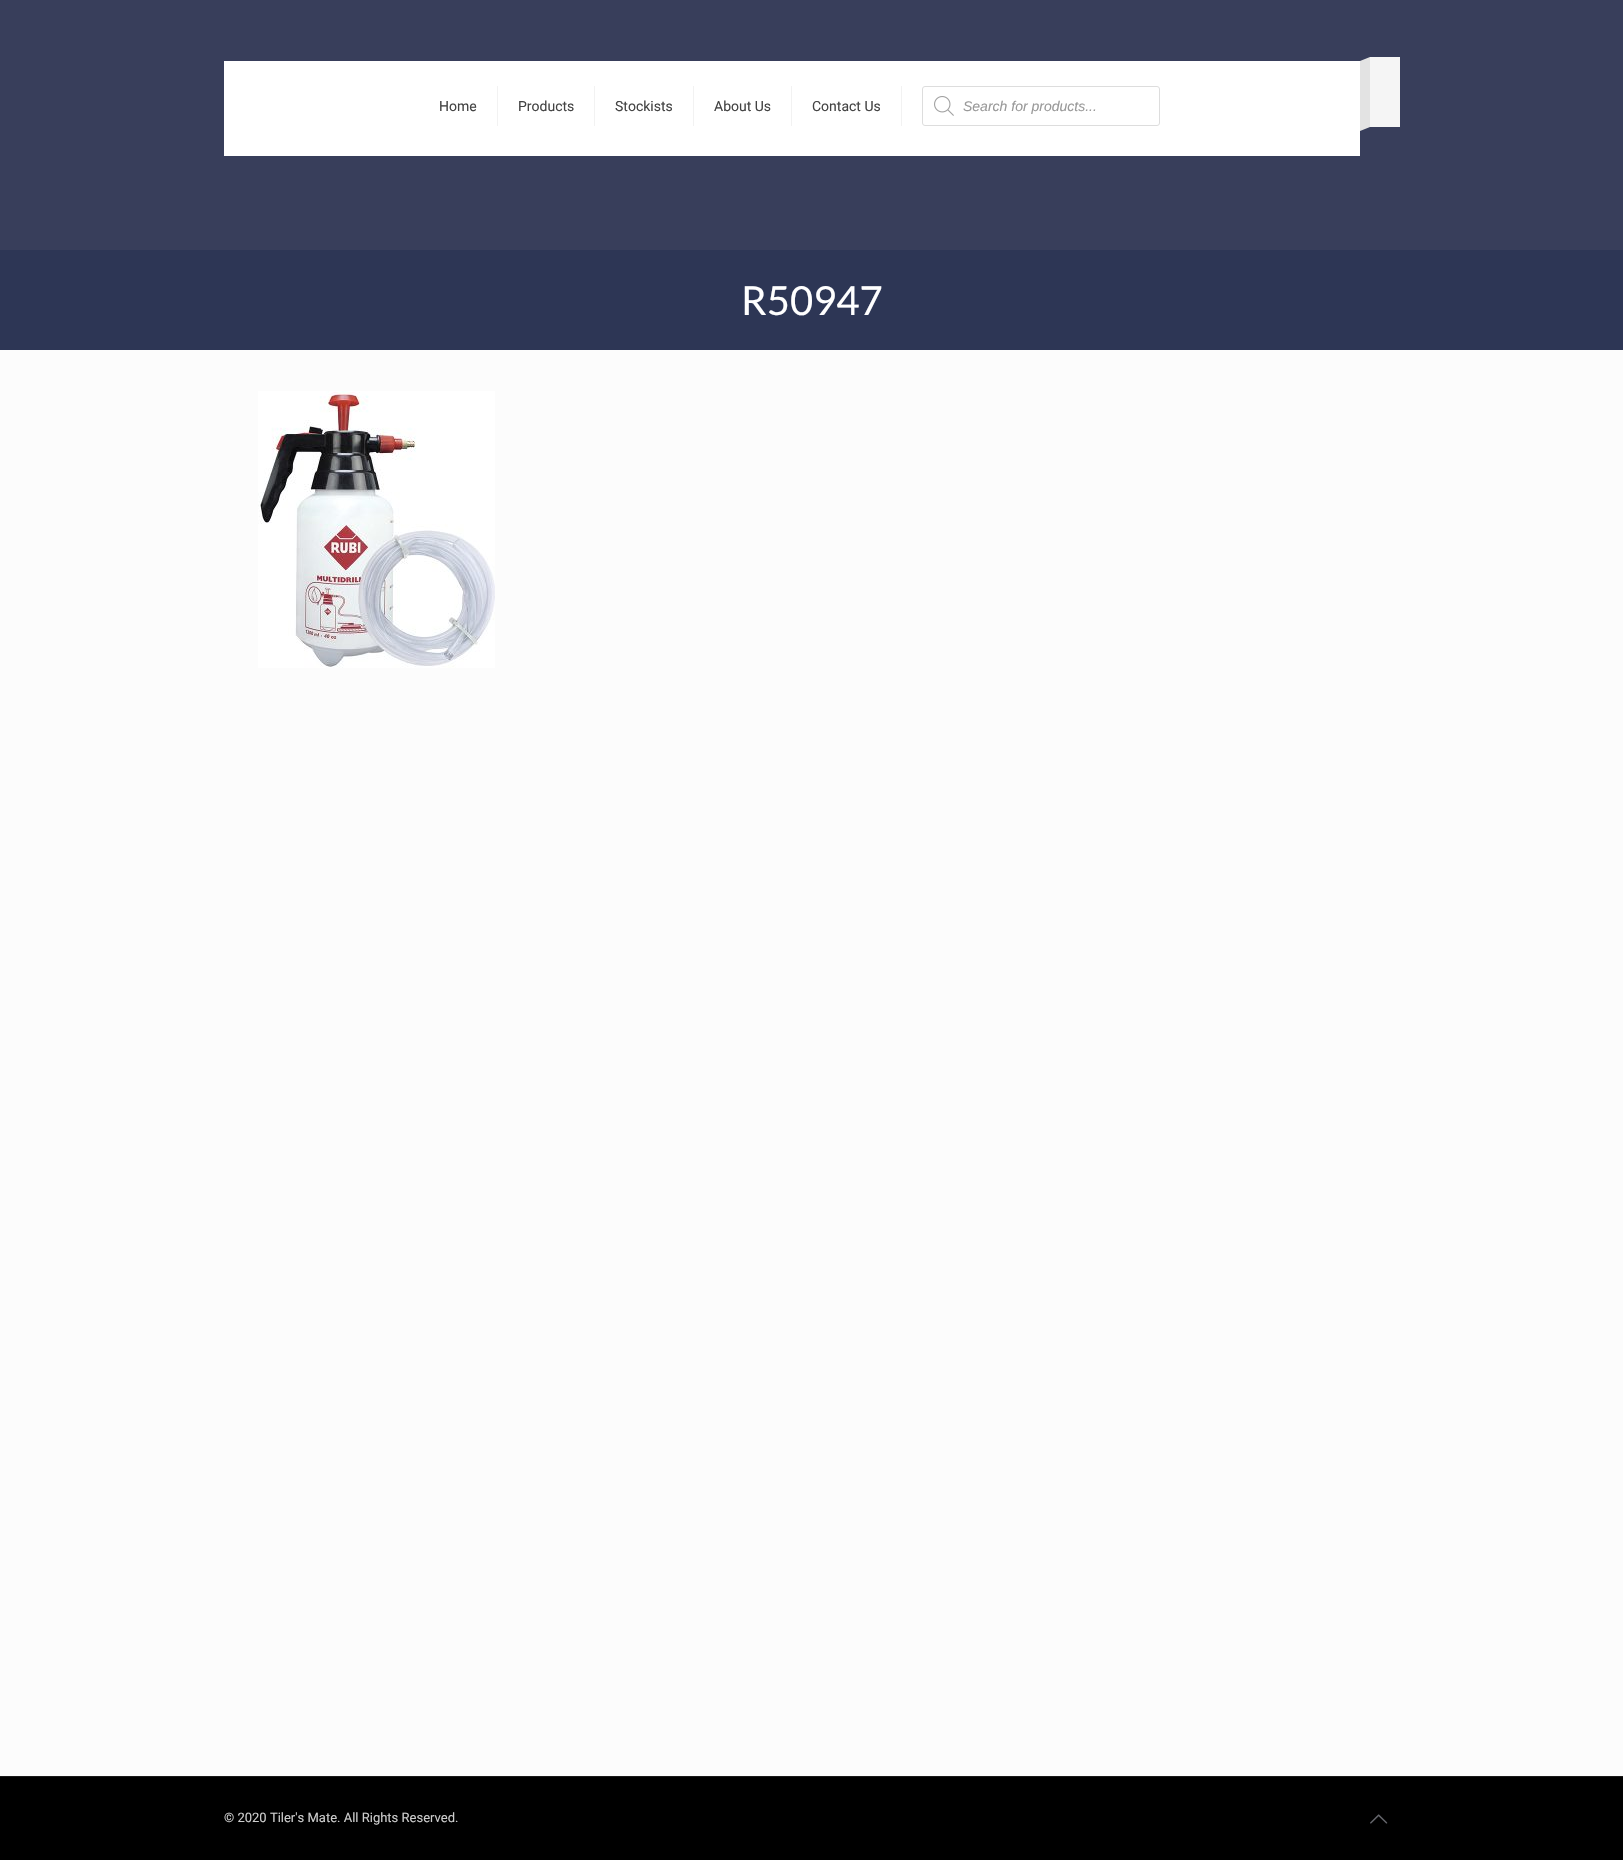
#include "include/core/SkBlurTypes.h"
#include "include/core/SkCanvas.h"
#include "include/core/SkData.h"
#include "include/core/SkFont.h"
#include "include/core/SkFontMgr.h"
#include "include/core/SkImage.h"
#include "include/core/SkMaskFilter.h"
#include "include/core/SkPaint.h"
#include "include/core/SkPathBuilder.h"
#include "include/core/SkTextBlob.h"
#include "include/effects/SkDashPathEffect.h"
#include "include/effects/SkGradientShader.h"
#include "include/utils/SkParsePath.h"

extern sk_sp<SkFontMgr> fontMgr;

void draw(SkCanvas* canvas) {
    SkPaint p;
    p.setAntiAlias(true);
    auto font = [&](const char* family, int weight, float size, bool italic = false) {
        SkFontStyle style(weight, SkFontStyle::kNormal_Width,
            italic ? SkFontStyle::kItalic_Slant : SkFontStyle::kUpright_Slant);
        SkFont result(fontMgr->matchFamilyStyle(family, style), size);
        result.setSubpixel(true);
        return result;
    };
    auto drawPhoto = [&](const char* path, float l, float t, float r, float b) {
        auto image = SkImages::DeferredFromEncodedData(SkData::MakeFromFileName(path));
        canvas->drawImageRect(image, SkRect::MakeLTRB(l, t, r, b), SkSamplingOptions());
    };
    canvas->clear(0xFFFCFCFC);
    {
        const struct { float l, t, r, b; SkColor color; } items[] = {
            {0, 0, 1623, 250, 0xFF383E5B},
            {224, 61, 1360, 156, 0xFFFFFFFF},
            {497, 86, 498, 126, 0xFFF2F2F2},
        };
        for (auto [l, t, r, b, color] : items) {
            p.setColor(color);
            canvas->drawRect(SkRect::MakeLTRB(l, t, r, b), p);
        }
    }
    auto font1 = font("Roboto", 400, 14);
    p.setColor(0xFF444444);
    canvas->drawString("Home", 439, 111, font1, p);
    p.setColor(0xFFF2F2F2);
    canvas->drawRect(SkRect::MakeLTRB(594, 86, 595, 126), p);
    p.setColor(0xFF444444);
    canvas->drawString("Products", 518, 111, font1, p);
    p.setColor(0xFFF2F2F2);
    canvas->drawRect(SkRect::MakeLTRB(693, 86, 694, 126), p);
    p.setColor(0xFF444444);
    canvas->drawString("Stockists", 615, 111, font1, p);
    p.setColor(0xFFF2F2F2);
    canvas->drawRect(SkRect::MakeLTRB(791, 86, 792, 126), p);
    p.setColor(0xFF444444);
    canvas->drawString("About Us", 714, 111, font1, p);
    p.setColor(0xFFF2F2F2);
    canvas->drawRect(SkRect::MakeLTRB(901, 86, 902, 126), p);
    p.setColor(0xFF444444);
    canvas->drawString("Contact Us", 812, 111, font1, p);
    p.setStyle(SkPaint::kStroke_Style);
    p.setStrokeWidth(1);
    p.setColor(0xFFDDDDDD);
    canvas->drawRoundRect(SkRect::MakeLTRB(922.5f, 86.5f, 1159.5f, 125.5f), 2.5f, 2.5f, p);
    drawPhoto("media/1.png", 934, 96, 954, 116);
    auto font2 = font("Liberation Sans", 400, 14, true);
    p.setStyle(SkPaint::kFill_Style);
    p.setColor(0xFF999999);
    canvas->drawString("Search for products...", 963, 111, font2, p);
    p.setColor(0xFFF5F5F5);
    canvas->drawRect(SkRect::MakeLTRB(1370, 57, 1400, 127), p);
    p.setColor(0xFFE3E3E3);
    canvas->drawPath(SkPathBuilder().moveTo(1360, 61).lineTo(1370, 57).lineTo(1370, 127).lineTo(1360, 131).close().detach(), p);
    p.setColor(0xFF2D3655);
    canvas->drawRect(SkRect::MakeLTRB(0, 250, 1623, 350), p);
    auto font3 = font("Lato", 400, 40);
    p.setColor(0xFFFFFFFF);
    canvas->drawString("R50947", 741, 315, font3, p);
    drawPhoto("media/2.png", 258, 391, 495, 668);
    p.setColor(0xFF000000);
    canvas->drawRect(SkRect::MakeLTRB(0, 1777, 1623, 1860), p);
    p.setColor(0xFF1A1A1A);
    canvas->drawRect(SkRect::MakeLTRB(0, 1776, 1623, 1777), p);
    auto font4 = font("Roboto", 400, 13);
    p.setColor(0xFFCCCCCC);
    canvas->drawString("© 2020 Tiler's Mate. All Rights Reserved.", 224, 1822, font4, p);
    drawPhoto("media/3.png", 1370, 1814, 1388, 1824);
}
